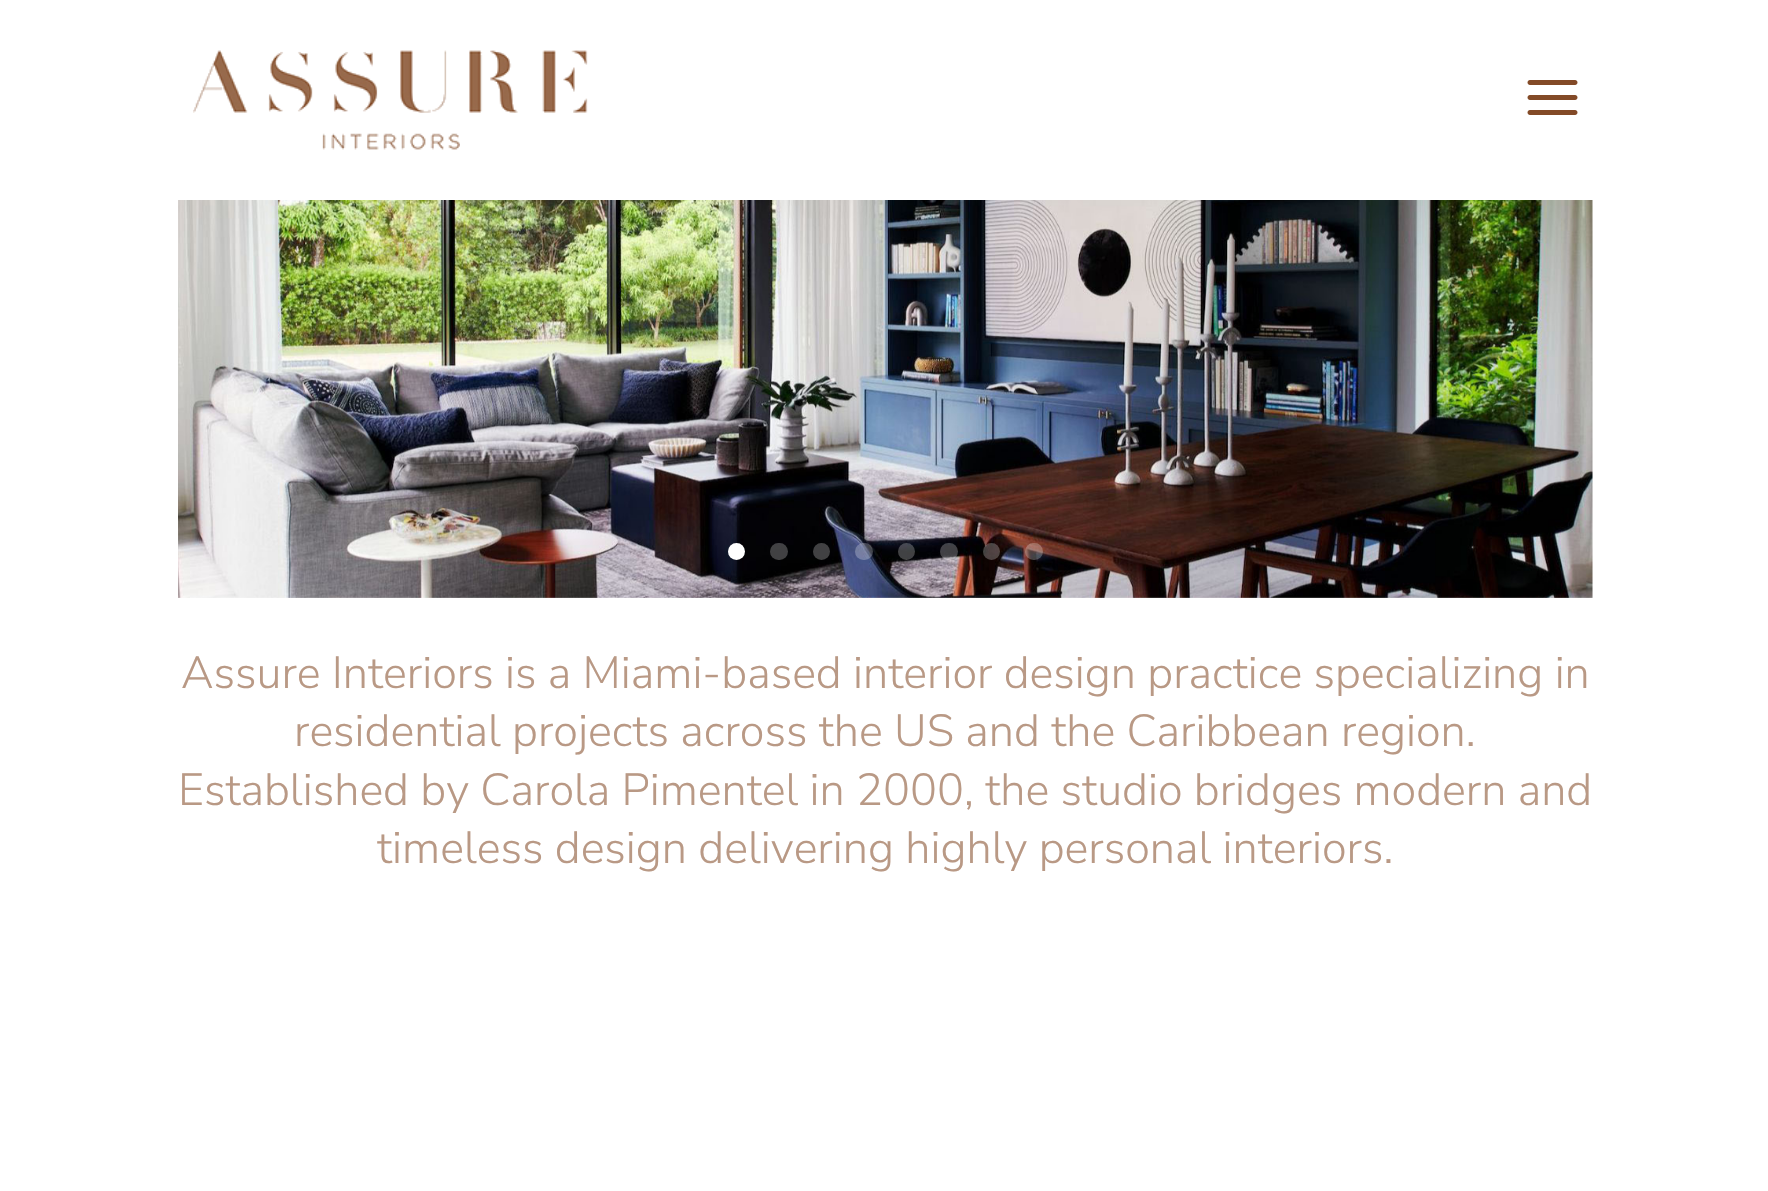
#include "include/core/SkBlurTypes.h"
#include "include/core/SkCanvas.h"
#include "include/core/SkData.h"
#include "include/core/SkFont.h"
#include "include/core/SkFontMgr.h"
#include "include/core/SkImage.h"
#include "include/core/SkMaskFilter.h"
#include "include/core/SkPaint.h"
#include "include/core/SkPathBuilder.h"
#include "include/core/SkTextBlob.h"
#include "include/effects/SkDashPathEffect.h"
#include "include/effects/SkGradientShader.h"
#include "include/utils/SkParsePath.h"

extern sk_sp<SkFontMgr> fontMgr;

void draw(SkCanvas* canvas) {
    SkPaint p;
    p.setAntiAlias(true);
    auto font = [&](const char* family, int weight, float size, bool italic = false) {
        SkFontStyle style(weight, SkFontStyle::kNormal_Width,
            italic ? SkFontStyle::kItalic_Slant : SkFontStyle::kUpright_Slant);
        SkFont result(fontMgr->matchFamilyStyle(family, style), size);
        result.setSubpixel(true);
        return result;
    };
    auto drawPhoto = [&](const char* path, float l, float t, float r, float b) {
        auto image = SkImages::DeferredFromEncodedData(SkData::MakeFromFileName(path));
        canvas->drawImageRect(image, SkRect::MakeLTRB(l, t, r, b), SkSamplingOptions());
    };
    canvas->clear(0xFFFFFFFF);
    drawPhoto("media/1.png", 193, 50, 588, 150);
    drawPhoto("media/2.png", 1527, 80, 1578, 115);
    drawPhoto("media/3.png", 178, 200, 1593, 598);
    p.setColor(0xFFFFFFFF);
    canvas->drawCircle(736.5f, 551.5f, 8.5f, p);
    p.setColor(0x40FFFFFF);
    canvas->drawRoundRect(SkRect::MakeLTRB(770, 543, 788, 560), 8.5f, 8.5f, p);
    canvas->drawCircle(821.5f, 551.5f, 8.5f, p);
    canvas->drawRoundRect(SkRect::MakeLTRB(855, 543, 873, 560), 8.5f, 8.5f, p);
    canvas->drawCircle(906.5f, 551.5f, 8.5f, p);
    canvas->drawRoundRect(SkRect::MakeLTRB(940, 543, 958, 560), 8.5f, 8.5f, p);
    canvas->drawCircle(991.5f, 551.5f, 8.5f, p);
    canvas->drawRoundRect(SkRect::MakeLTRB(1025, 543, 1043, 560), 8.5f, 8.5f, p);
    auto font1 = font("Nunito Sans", 300, 45);
    p.setColor(0xFFB99985);
    {
        const struct { const char* s; float x, y; } items[] = {
            {"Assure Interiors is a Miami-based interior design practice specializing in", 181, 688},
            {"residential projects across the US and the Caribbean region.", 294, 746},
            {"Established by Carola Pimentel in 2000, the studio bridges modern and", 178, 805},
            {"timeless design delivering highly personal interiors.", 377, 863},
        };
        for (auto [s, x, y] : items) {
            canvas->drawString(s, x, y, font1, p);
        }
    }
}
